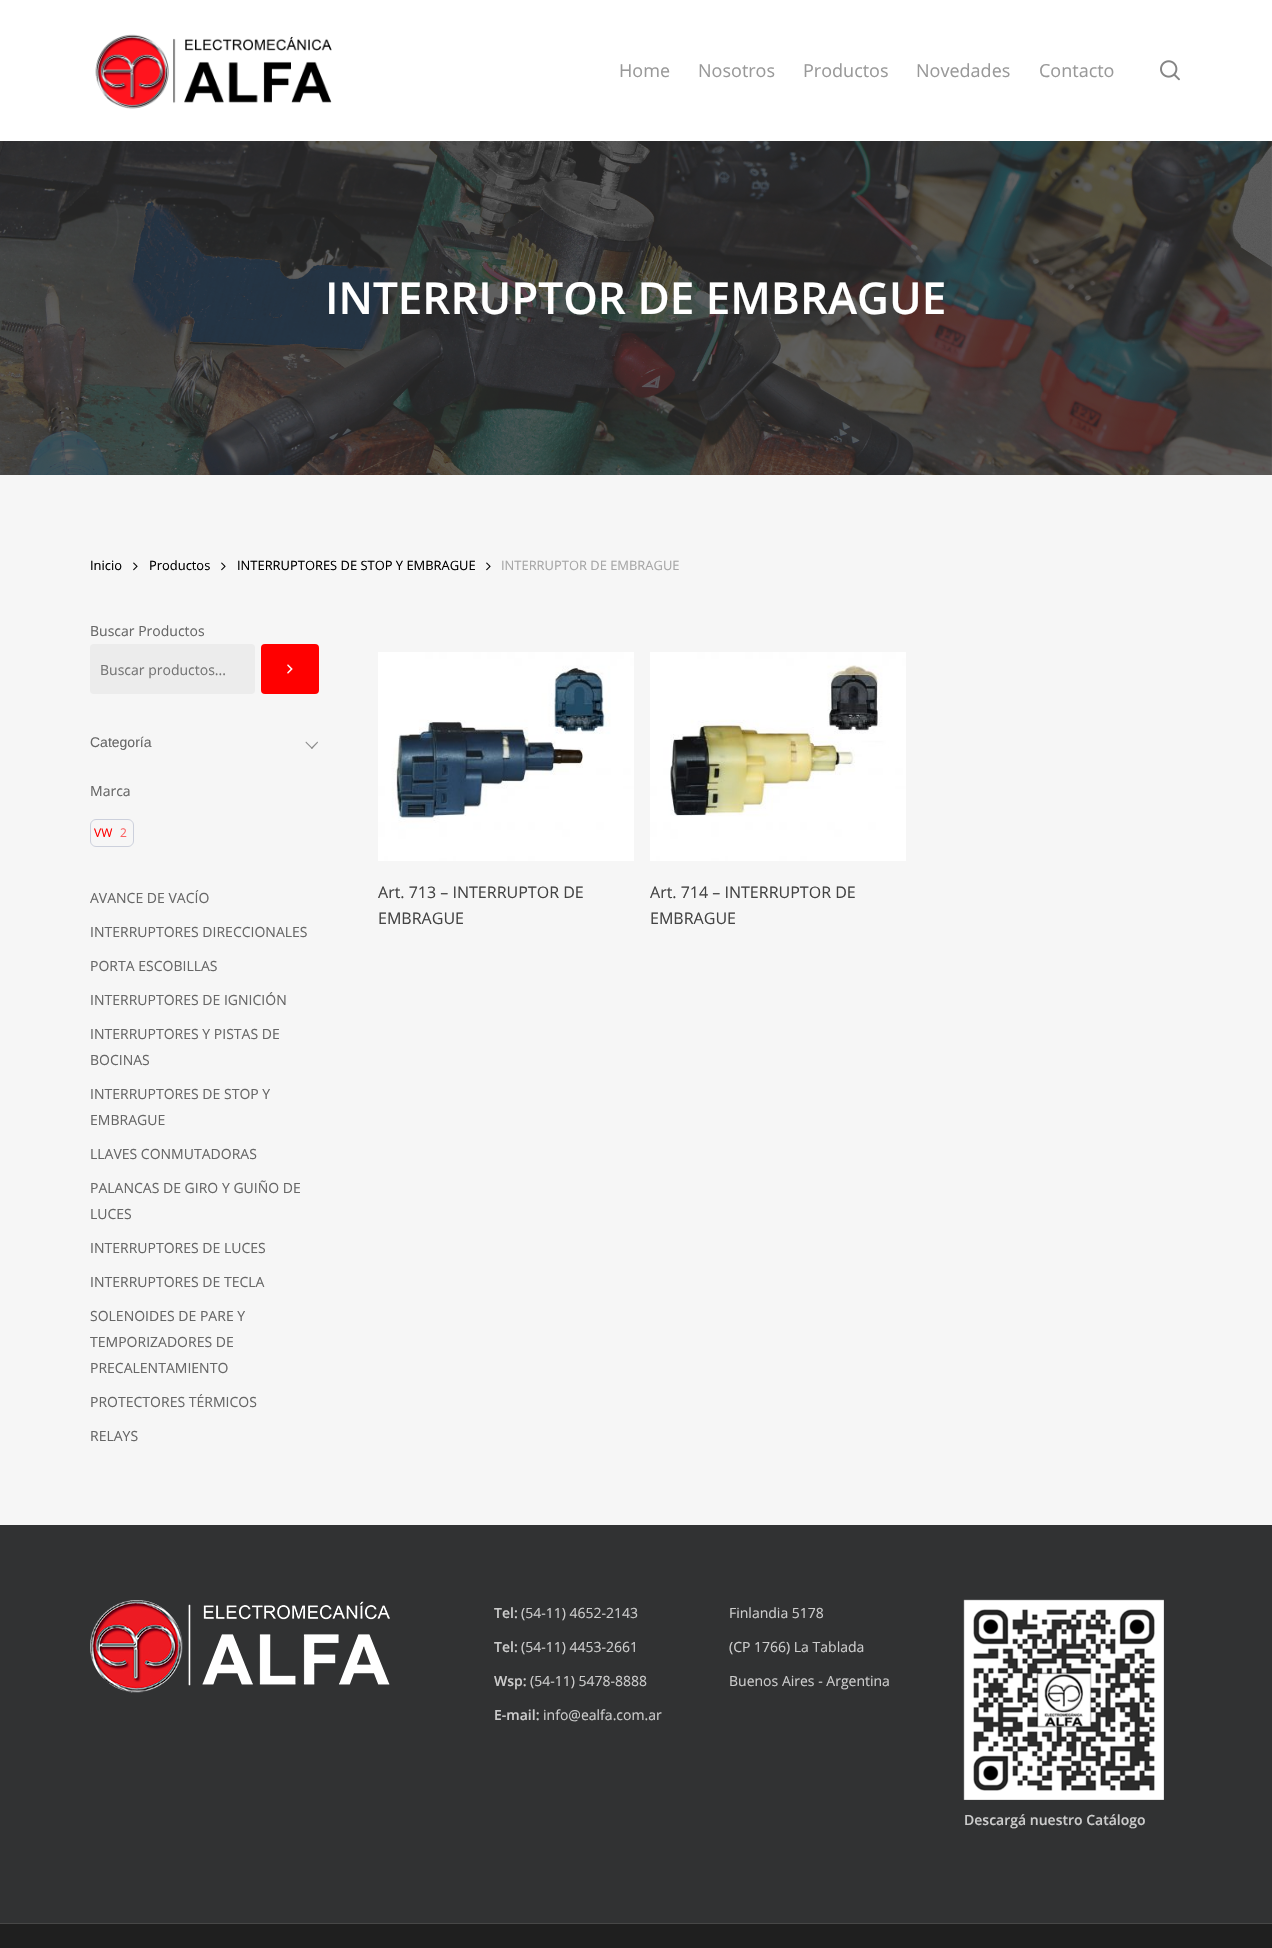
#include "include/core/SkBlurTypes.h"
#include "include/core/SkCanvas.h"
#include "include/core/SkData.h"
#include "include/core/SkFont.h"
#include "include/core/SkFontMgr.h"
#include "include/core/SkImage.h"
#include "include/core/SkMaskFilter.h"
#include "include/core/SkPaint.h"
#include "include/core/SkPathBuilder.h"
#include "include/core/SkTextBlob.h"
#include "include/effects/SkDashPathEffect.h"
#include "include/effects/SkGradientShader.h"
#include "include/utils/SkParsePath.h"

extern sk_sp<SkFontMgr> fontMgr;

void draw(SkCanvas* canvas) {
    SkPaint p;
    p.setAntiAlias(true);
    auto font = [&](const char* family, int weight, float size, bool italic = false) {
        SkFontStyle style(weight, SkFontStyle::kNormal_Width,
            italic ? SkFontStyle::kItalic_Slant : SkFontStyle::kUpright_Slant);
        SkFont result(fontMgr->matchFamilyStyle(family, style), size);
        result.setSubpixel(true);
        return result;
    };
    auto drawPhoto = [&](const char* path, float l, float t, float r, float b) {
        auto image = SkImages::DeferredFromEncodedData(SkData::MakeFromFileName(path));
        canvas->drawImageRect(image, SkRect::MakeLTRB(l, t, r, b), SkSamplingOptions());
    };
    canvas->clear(0xFFFFFFFF);
    drawPhoto("media/1.png", 95, 34, 332, 109);
    auto font1 = font("Open Sans", 400, 18);
    p.setColor(0xFF999999);
    {
        const struct { const char* s; float x, y; } items[] = {
            {"Home", 619, 77},
            {"Nosotros", 698, 77},
            {"Productos", 803, 77},
            {"Novedades", 916, 77},
            {"Contacto", 1039, 77},
        };
        for (auto [s, x, y] : items) {
            canvas->drawString(s, x, y, font1, p);
        }
    }
    drawPhoto("media/2.png", 1160, 60, 1180, 81);
    drawPhoto("media/3.png", 0, 141, 1272, 475);
    auto font2 = font("Open Sans", 600, 44);
    p.setColor(0xFFFFFFFF);
    canvas->drawString("INTERRUPTOR DE EMBRAGUE", 325, 314, font2, p);
    p.setColor(0xFFF6F6F6);
    canvas->drawRect(SkRect::MakeLTRB(0, 475, 1272, 1525), p);
    auto font3 = font("Open Sans", 400, 12.9f);
    p.setColor(0xFF000000);
    canvas->drawString("Inicio", 90, 570, font3, p);
    drawPhoto("media/4.png", 133, 562, 138, 571);
    canvas->drawString("Productos", 149, 570, font3, p);
    drawPhoto("media/4.png", 221, 562, 226, 571);
    canvas->drawString("INTERRUPTORES DE STOP Y EMBRAGUE", 237, 570, font3, p);
    drawPhoto("media/4.png", 486, 562, 491, 571);
    p.setColor(0xFFA7A7A7);
    canvas->drawString("INTERRUPTOR DE EMBRAGUE", 501, 570, font3, p);
    auto font4 = font("Open Sans", 400, 14);
    p.setColor(0xFF676767);
    canvas->drawString("Buscar Productos", 90, 636, font4, p);
    p.setColor(0xFFECECEC);
    canvas->drawRoundRect(SkRect::MakeLTRB(90, 644, 255, 694), 4, 4, p);
    p.setColor(0xFF757575);
    canvas->drawString("Buscar productos...", 100, 675, font4, p);
    p.setColor(0xFFFF0000);
    canvas->drawRoundRect(SkRect::MakeLTRB(261, 644, 319, 694), 4, 4, p);
    drawPhoto("media/5.png", 287, 664, 293, 674);
    auto font5 = font("Liberation Sans", 400, 14);
    p.setColor(0xFF676767);
    canvas->drawString("Categoría", 90, 747, font5, p);
    p.setColor(0xFF8A8A8A);
    canvas->drawPath(SkPathBuilder().moveTo(312, 749).lineTo(305.5f, 742.5f).lineTo(306, 741.5f).lineTo(312.5f, 748).close().detach(), p);
    canvas->drawPath(SkPathBuilder().moveTo(312, 749).lineTo(311, 748).lineTo(317.5f, 741.5f).lineTo(318, 742.5f).close().detach(), p);
    p.setColor(0xFF676767);
    canvas->drawString("Marca", 90, 796, font4, p);
    p.setStyle(SkPaint::kStroke_Style);
    p.setStrokeWidth(1);
    p.setColor(0xFFCCD0DC);
    canvas->drawRoundRect(SkRect::MakeLTRB(90.5f, 819.5f, 133.5f, 846.5f), 5.5f, 5.5f, p);
    auto font6 = font("Open Sans", 400, 12);
    p.setStyle(SkPaint::kFill_Style);
    p.setColor(0xFFFF0000);
    canvas->drawString("VW", 94, 837, font6, p);
    p.setColor(0xFFFB6262);
    canvas->drawString("2", 120, 837, font6, p);
    p.setColor(0xFF676767);
    {
        const struct { const char* s; float x, y; } items[] = {
            {"AVANCE DE VACÍO", 90, 903},
            {"INTERRUPTORES DIRECCIONALES", 90, 937},
            {"PORTA ESCOBILLAS", 90, 971},
            {"INTERRUPTORES DE IGNICIÓN", 90, 1005},
            {"INTERRUPTORES Y PISTAS DE", 90, 1039},
            {"BOCINAS", 90, 1065},
            {"INTERRUPTORES DE STOP Y", 90, 1099},
            {"EMBRAGUE", 90, 1125},
            {"LLAVES CONMUTADORAS", 90, 1159},
            {"PALANCAS DE GIRO Y GUIÑO DE", 90, 1193},
            {"LUCES", 90, 1219},
            {"INTERRUPTORES DE LUCES", 90, 1253},
            {"INTERRUPTORES DE TECLA", 90, 1287},
            {"SOLENOIDES DE PARE Y", 90, 1321},
            {"TEMPORIZADORES DE", 90, 1347},
            {"PRECALENTAMIENTO", 90, 1373},
            {"PROTECTORES TÉRMICOS", 90, 1407},
            {"RELAYS", 90, 1441},
        };
        for (auto [s, x, y] : items) {
            canvas->drawString(s, x, y, font4, p);
        }
    }
    drawPhoto("media/6.png", 378, 652, 634, 861);
    auto font7 = font("Open Sans", 400, 16);
    p.setColor(0xFF444444);
    canvas->drawString("Art. 713 – INTERRUPTOR DE", 378, 898, font7, p);
    canvas->drawString("EMBRAGUE", 378, 924, font7, p);
    drawPhoto("media/7.png", 650, 652, 906, 861);
    canvas->drawString("Art. 714 – INTERRUPTOR DE", 650, 898, font7, p);
    canvas->drawString("EMBRAGUE", 650, 924, font7, p);
    p.setColor(0xFF313233);
    canvas->drawRect(SkRect::MakeLTRB(0, 1525, 1272, 1923), p);
    drawPhoto("media/8.png", 90, 1600, 390, 1693);
    auto font8 = font("Open Sans", 600, 14);
    p.setColor(0xFFCCCCCC);
    canvas->drawString("Tel:", 494, 1618, font8, p);
    canvas->drawString("(54-11) 4652-2143", 521, 1618, font4, p);
    canvas->drawString("Tel:", 494, 1652, font8, p);
    canvas->drawString("(54-11) 4453-2661", 521, 1652, font4, p);
    canvas->drawString("Wsp:", 494, 1686, font8, p);
    canvas->drawString("(54-11) 5478-8888", 530, 1686, font4, p);
    canvas->drawString("E-mail:", 494, 1720, font8, p);
    {
        const struct { const char* s; float x, y; } items[] = {
            {"info@ealfa.com.ar", 543, 1720},
            {"Finlandia 5178", 729, 1618},
            {"(CP 1766) La Tablada", 729, 1652},
            {"Buenos Aires - Argentina", 729, 1686},
        };
        for (auto [s, x, y] : items) {
            canvas->drawString(s, x, y, font4, p);
        }
    }
    drawPhoto("media/9.png", 963, 1599, 1164, 1800);
    canvas->drawString("Descargá nuestro Catálogo", 964, 1825, font8, p);
    p.setColor(0xFF1F1F1F);
    canvas->drawRect(SkRect::MakeLTRB(0, 1924, 1272, 1948), p);
    p.setColor(0xFF474747);
    canvas->drawRect(SkRect::MakeLTRB(0, 1923, 1272, 1924), p);
}
